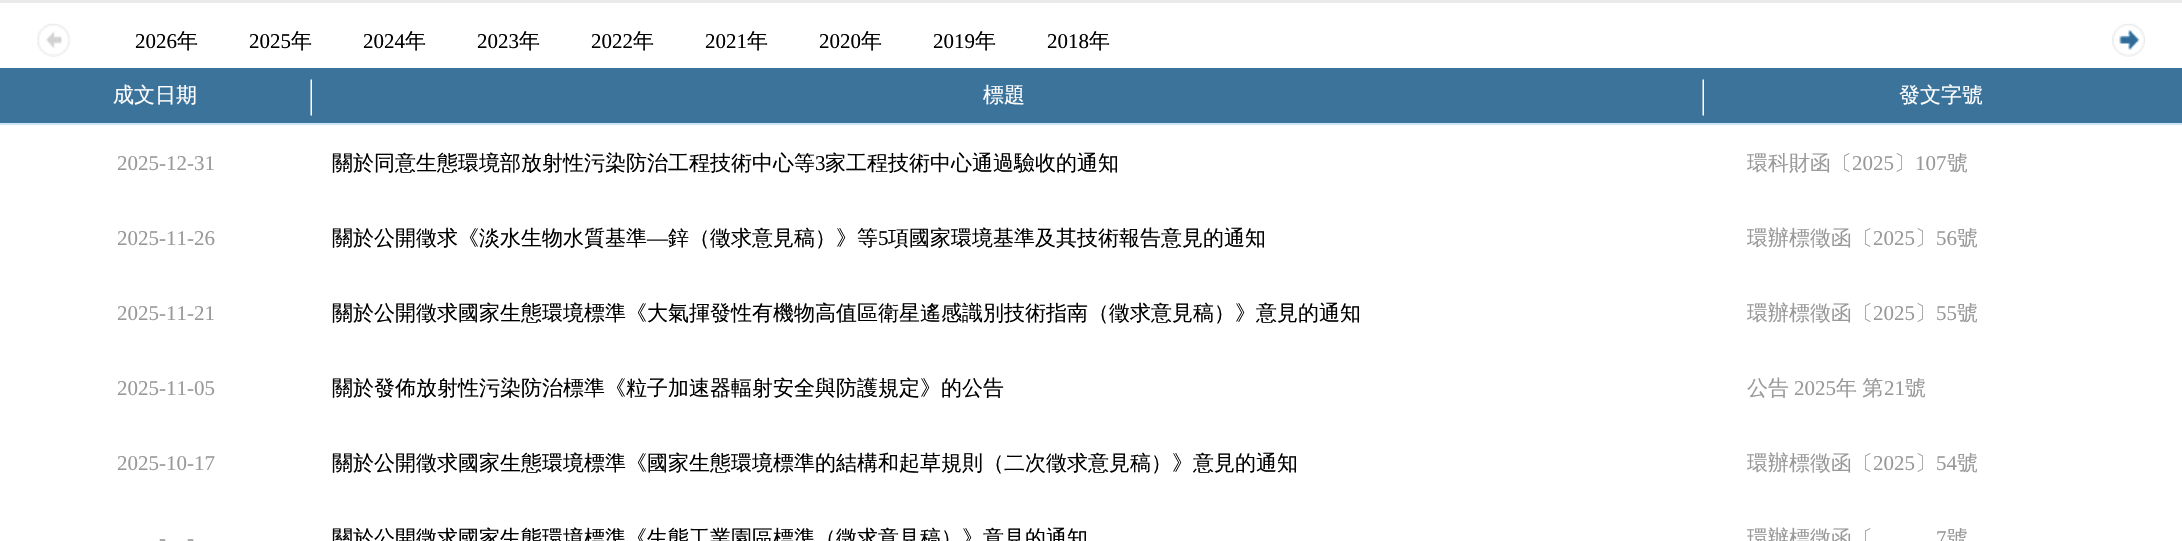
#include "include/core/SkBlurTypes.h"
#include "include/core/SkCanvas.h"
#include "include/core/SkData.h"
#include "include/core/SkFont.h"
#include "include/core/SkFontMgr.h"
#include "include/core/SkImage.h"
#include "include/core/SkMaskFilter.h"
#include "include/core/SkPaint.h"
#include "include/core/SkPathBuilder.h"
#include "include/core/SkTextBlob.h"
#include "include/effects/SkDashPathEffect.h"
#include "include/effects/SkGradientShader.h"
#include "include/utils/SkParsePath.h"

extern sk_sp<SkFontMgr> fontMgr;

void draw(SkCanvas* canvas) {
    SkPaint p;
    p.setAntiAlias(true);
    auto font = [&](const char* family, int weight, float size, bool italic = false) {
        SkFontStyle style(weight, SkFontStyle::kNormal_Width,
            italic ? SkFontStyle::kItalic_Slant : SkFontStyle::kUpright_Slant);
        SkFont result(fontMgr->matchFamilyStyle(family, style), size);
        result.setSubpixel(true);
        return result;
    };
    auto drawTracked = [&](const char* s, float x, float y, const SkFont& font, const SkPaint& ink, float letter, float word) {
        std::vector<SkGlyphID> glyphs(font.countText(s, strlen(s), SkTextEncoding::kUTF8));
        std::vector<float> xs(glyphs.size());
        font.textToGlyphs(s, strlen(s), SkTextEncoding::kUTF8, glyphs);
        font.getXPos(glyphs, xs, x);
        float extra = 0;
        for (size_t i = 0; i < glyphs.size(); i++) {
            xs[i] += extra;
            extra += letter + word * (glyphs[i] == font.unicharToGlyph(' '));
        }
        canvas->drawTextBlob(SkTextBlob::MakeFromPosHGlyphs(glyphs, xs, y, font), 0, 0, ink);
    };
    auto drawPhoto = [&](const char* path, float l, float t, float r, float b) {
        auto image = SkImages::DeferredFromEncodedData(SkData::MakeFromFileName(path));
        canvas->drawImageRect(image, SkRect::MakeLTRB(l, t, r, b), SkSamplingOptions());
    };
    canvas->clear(0xFFFFFFFF);
    p.setColor(0xFFEAEAEA);
    canvas->drawRect(SkRect::MakeLTRB(0, 0, 2182, 3), p);
    drawPhoto("media/1.png", 37, 23, 71, 57);
    auto font1 = font("Liberation Serif", 400, 21);
    p.setColor(0xFF000000);
    canvas->drawString("2026", 135, 48, font1, p);
    auto font2 = font("WenQuanYi Zen Hei", 500, 21);
    canvas->drawString("年", 177, 48, font2, p);
    canvas->drawString("2025", 249, 48, font1, p);
    canvas->drawString("年", 291, 48, font2, p);
    canvas->drawString("2024", 363, 48, font1, p);
    canvas->drawString("年", 405, 48, font2, p);
    canvas->drawString("2023", 477, 48, font1, p);
    canvas->drawString("年", 519, 48, font2, p);
    canvas->drawString("2022", 591, 48, font1, p);
    canvas->drawString("年", 633, 48, font2, p);
    canvas->drawString("2021", 705, 48, font1, p);
    canvas->drawString("年", 747, 48, font2, p);
    canvas->drawString("2020", 819, 48, font1, p);
    canvas->drawString("年", 861, 48, font2, p);
    canvas->drawString("2019", 933, 48, font1, p);
    canvas->drawString("年", 975, 48, font2, p);
    canvas->drawString("2018", 1047, 48, font1, p);
    canvas->drawString("年", 1089, 48, font2, p);
    drawPhoto("media/2.png", 2112, 23, 2145, 57);
    p.setColor(0xFF3C739B);
    canvas->drawRect(SkRect::MakeLTRB(0, 68, 2182, 123), p);
    p.setColor(0xFFCFE6F7);
    canvas->drawRect(SkRect::MakeLTRB(0, 123, 2182, 125), p);
    p.setColor(0xFFFFFFFF);
    canvas->drawString("成文日期", 113, 102, font2, p);
    drawPhoto("media/3.png", 310, 79, 312, 116);
    canvas->drawString("標題", 983, 102, font2, p);
    drawPhoto("media/3.png", 1702, 79, 1704, 116);
    canvas->drawString("發文字號", 1899, 102, font2, p);
    p.setColor(0xFF999999);
    canvas->drawString("2025-12-31", 117, 170, font1, p);
    p.setColor(0xFF000000);
    canvas->drawString("關於同意生態環境部放射性污染防治工程技術中心等", 332, 170, font2, p);
    canvas->drawString("3", 815, 170, font1, p);
    canvas->drawString("家工程技術中心通過驗收的通知", 825, 170, font2, p);
    p.setColor(0xFF999999);
    canvas->drawString("環科財函〔", 1747, 170, font2, p);
    canvas->drawString("2025", 1852, 170, font1, p);
    canvas->drawString("〕", 1894, 170, font2, p);
    canvas->drawString("107", 1915, 170, font1, p);
    canvas->drawString("號", 1947, 170, font2, p);
    canvas->drawString("2025-11-26", 117, 245, font1, p);
    p.setColor(0xFF000000);
    canvas->drawString("關於公開徵求《淡水生物水質基準", 332, 245, font2, p);
    canvas->drawString("—", 647, 245, font1, p);
    canvas->drawString("鋅（徵求意見稿）》等", 668, 245, font2, p);
    canvas->drawString("5", 878, 245, font1, p);
    canvas->drawString("項國家環境基準及其技術報告意見的通知", 888, 245, font2, p);
    p.setColor(0xFF999999);
    canvas->drawString("環辦標徵函〔", 1747, 245, font2, p);
    canvas->drawString("2025", 1873, 245, font1, p);
    canvas->drawString("〕", 1915, 245, font2, p);
    canvas->drawString("56", 1936, 245, font1, p);
    canvas->drawString("號", 1957, 245, font2, p);
    canvas->drawString("2025-11-21", 117, 320, font1, p);
    p.setColor(0xFF000000);
    canvas->drawString("關於公開徵求國家生態環境標準《大氣揮發性有機物高值區衛星遙感識別技術指南（徵求意見稿）》意見的通知", 332, 320, font2, p);
    p.setColor(0xFF999999);
    canvas->drawString("環辦標徵函〔", 1747, 320, font2, p);
    canvas->drawString("2025", 1873, 320, font1, p);
    canvas->drawString("〕", 1915, 320, font2, p);
    canvas->drawString("55", 1936, 320, font1, p);
    canvas->drawString("號", 1957, 320, font2, p);
    canvas->drawString("2025-11-05", 117, 395, font1, p);
    p.setColor(0xFF000000);
    canvas->drawString("關於發佈放射性污染防治標準《粒子加速器輻射安全與防護規定》的公告", 332, 395, font2, p);
    p.setColor(0xFF999999);
    canvas->drawString("公告", 1747, 395, font2, p);
    canvas->drawString("2025", 1794, 395, font1, p);
    drawTracked("年 第", 1836, 395, font2, p, 0, -1);
    canvas->drawString("21", 1884, 395, font1, p);
    canvas->drawString("號", 1905, 395, font2, p);
    canvas->drawString("2025-10-17", 117, 470, font1, p);
    p.setColor(0xFF000000);
    canvas->drawString("關於公開徵求國家生態環境標準《國家生態環境標準的結構和起草規則（二次徵求意見稿）》意見的通知", 332, 470, font2, p);
    p.setColor(0xFF999999);
    canvas->drawString("環辦標徵函〔", 1747, 470, font2, p);
    canvas->drawString("2025", 1873, 470, font1, p);
    canvas->drawString("〕", 1915, 470, font2, p);
    canvas->drawString("54", 1936, 470, font1, p);
    canvas->drawString("號", 1957, 470, font2, p);
    canvas->drawString("-", 159, 545, font1, p);
    canvas->drawString("-", 187, 545, font1, p);
    p.setColor(0xFF000000);
    canvas->drawString("關於公開徵求國家生態環境標準《生態工業園區標準（徵求意見稿）》意見的通知", 332, 545, font2, p);
    p.setColor(0xFF999999);
    canvas->drawString("環辦標徵函〔", 1747, 545, font2, p);
    canvas->drawString("7", 1936, 545, font1, p);
    canvas->drawString("號", 1947, 545, font2, p);
}
